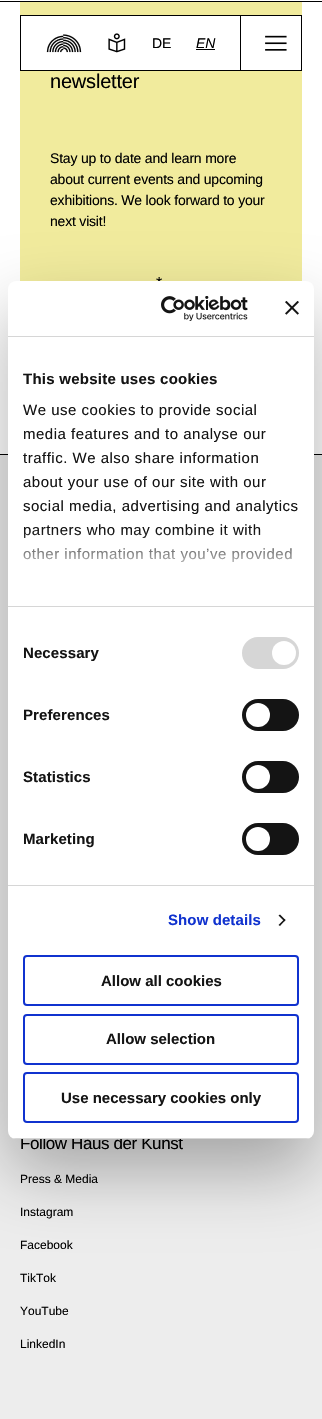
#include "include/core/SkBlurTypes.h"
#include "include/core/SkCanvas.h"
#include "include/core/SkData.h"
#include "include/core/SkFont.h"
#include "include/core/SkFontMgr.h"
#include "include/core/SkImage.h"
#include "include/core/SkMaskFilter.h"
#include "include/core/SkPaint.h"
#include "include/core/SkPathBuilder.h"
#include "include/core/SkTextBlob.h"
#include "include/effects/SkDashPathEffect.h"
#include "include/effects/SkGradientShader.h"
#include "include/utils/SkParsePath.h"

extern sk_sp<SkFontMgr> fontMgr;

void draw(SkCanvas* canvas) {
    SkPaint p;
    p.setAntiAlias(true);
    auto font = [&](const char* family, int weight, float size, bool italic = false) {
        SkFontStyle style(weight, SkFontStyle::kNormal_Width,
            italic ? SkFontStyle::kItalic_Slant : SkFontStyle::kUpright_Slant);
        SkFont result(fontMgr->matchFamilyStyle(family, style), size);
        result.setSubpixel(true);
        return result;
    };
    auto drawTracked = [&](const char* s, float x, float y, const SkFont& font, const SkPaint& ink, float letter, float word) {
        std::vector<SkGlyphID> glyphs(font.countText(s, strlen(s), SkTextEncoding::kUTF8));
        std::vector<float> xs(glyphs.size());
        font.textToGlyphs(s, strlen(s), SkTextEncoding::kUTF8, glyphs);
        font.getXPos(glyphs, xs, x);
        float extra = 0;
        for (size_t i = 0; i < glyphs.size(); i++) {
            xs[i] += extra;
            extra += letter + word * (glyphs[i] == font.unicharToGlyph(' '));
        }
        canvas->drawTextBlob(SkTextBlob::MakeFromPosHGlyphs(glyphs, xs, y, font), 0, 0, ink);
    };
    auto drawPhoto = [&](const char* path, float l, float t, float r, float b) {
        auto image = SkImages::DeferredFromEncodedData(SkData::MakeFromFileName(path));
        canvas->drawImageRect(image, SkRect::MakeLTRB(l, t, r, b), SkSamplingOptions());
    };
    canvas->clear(0xFFFFFFFF);
    p.setColor(0xFF000000);
    canvas->drawRect(SkRect::MakeLTRB(0, 1, 322, 2), p);
    p.setColor(0xFFF1EB9D);
    canvas->drawRect(SkRect::MakeLTRB(20, 2, 302, 281), p);
    p.setColor(0xFFFFFFFF);
    canvas->drawRect(SkRect::MakeLTRB(20.5f, 15.5f, 301.5f, 70.5f), p);
    p.setStyle(SkPaint::kStroke_Style);
    p.setStrokeWidth(1);
    p.setColor(0xFF000000);
    canvas->drawRect(SkRect::MakeLTRB(20.5f, 15.5f, 301.5f, 70.5f), p);
    drawPhoto("media/1.png", 46, 34, 82, 53);
    drawPhoto("media/2.png", 108, 33, 126, 53);
    auto font1 = font("Liberation Sans", 400, 14);
    p.setStyle(SkPaint::kFill_Style);
    drawTracked("DE", 152, 48, font1, p, -0.2f, 0);
    auto font2 = font("Liberation Sans", 400, 14, true);
    drawTracked("EN", 196, 48, font2, p, -0.2f, 0);
    canvas->drawRect(SkRect::MakeLTRB(196, 49, 215, 50), p);
    canvas->drawRect(SkRect::MakeLTRB(240, 16, 241, 70), p);
    drawPhoto("media/3.png", 265, 35, 287, 51);
    auto font3 = font("Liberation Sans", 400, 20);
    drawTracked("newsletter", 50, 88, font3, p, -0.2f, 0);
    {
        const struct { const char* s; float x, y; } items[] = {
            {"Stay up to date and learn more", 50, 163},
            {"about current events and upcoming", 50, 184},
            {"exhibitions. We look forward to your", 50, 205},
            {"next visit!", 50, 226},
        };
        for (auto [s, x, y] : items) {
            drawTracked(s, x, y, font1, p, -0.2f, 0);
        }
    }
    auto font4 = font("Liberation Sans", 400, 16);
    canvas->drawString("*", 156, 288, font4, p);
    p.setColor(0xFFEDEDED);
    canvas->drawRect(SkRect::MakeLTRB(0, 455, 322, 1419), p);
    p.setColor(0xFF000000);
    canvas->drawRect(SkRect::MakeLTRB(0, 454, 322, 455), p);
    auto font5 = font("Liberation Sans", 400, 17);
    drawTracked("Follow Haus der Kunst", 20, 1149, font5, p, -0.4f, 0);
    auto font6 = font("Liberation Sans", 400, 12);
    {
        const struct { const char* s; float x, y; } items[] = {
            {"Press & Media", 20, 1183},
            {"Instagram", 20, 1216},
            {"Facebook", 20, 1249},
            {"TikTok", 20, 1282},
            {"YouTube", 20, 1315},
            {"LinkedIn", 20, 1348},
        };
        for (auto [s, x, y] : items) {
            canvas->drawString(s, x, y, font6, p);
        }
    }
    p.setColor(0x4D000000);
    p.setMaskFilter(SkMaskFilter::MakeBlur(kNormal_SkBlurStyle, 34));
    canvas->drawRoundRect(SkRect::MakeLTRB(8, 313, 314, 1171), 8, 8, p);
    p.setMaskFilter(nullptr);
    p.setColor(0xFFFFFFFF);
    canvas->drawRoundRect(SkRect::MakeLTRB(8, 281, 314, 1139), 8, 8, p);
    p.setColor(0xFFD6D6D6);
    canvas->drawRect(SkRect::MakeLTRB(8, 336, 314, 337), p);
    drawPhoto("media/4.png", 161, 296, 248, 321);
    drawPhoto("media/5.png", 285, 301, 299, 315);
    canvas->drawRect(SkRect::MakeLTRB(8, 606, 314, 607), p);
    auto font7 = font("Liberation Sans", 700, 15);
    p.setColor(0xFF141414);
    drawTracked("This website uses cookies", 23, 384, font7, p, 0.25f, 0);
    auto font8 = font("Liberation Sans", 400, 15);
    {
        const struct { const char* s; float x, y; } items[] = {
            {"We use cookies to provide social", 23, 415},
            {"media features and to analyse our", 23, 439},
            {"traffic. We also share information", 23, 463},
            {"about your use of our site with our", 23, 487},
            {"social media, advertising and analytics", 23, 511},
            {"partners who may combine it with", 23, 535},
            {"other information that you’ve provided", 23, 559},
        };
        for (auto [s, x, y] : items) {
            drawTracked(s, x, y, font8, p, 0.5f, 0);
        }
    }
    {
        const SkColor colors[] = {0xFFFFFFFF, 0xCCFFFFFF, 0x00FFFFFF};
        const float stops[] = {0, 0.5f, 1};
        const SkPoint ends[] = {{155, 606}, {155, 531}};
        p.setShader(SkGradientShader::MakeLinear(ends, colors, stops, 3, SkTileMode::kClamp));
        p.setAlpha(255);
    }
    canvas->drawRect(SkRect::MakeLTRB(23, 532, 292, 563), p);
    p.setShader(nullptr);
    p.setColor(0xFFD6D6D6);
    canvas->drawRect(SkRect::MakeLTRB(8, 885, 314, 886), p);
    p.setColor(0xFF141414);
    drawTracked("Necessary", 23, 658, font7, p, 0.1f, 0);
    p.setColor(0xFFD6D6D6);
    canvas->drawRoundRect(SkRect::MakeLTRB(242, 637, 299, 669), 16, 16, p);
    p.setColor(0xFFFFFFFF);
    canvas->drawCircle(284, 653, 12, p);
    p.setColor(0xFF141414);
    drawTracked("Preferences", 23, 720, font7, p, 0.1f, 0);
    canvas->drawRoundRect(SkRect::MakeLTRB(242, 699, 299, 731), 16, 16, p);
    p.setColor(0xFFFFFFFF);
    canvas->drawCircle(258, 715, 12, p);
    p.setColor(0xFF141414);
    drawTracked("Statistics", 23, 782, font7, p, 0.1f, 0);
    canvas->drawRoundRect(SkRect::MakeLTRB(242, 761, 299, 793), 16, 16, p);
    p.setColor(0xFFFFFFFF);
    canvas->drawCircle(258, 777, 12, p);
    p.setColor(0xFF141414);
    drawTracked("Marketing", 23, 844, font7, p, 0.1f, 0);
    canvas->drawRoundRect(SkRect::MakeLTRB(242, 823, 299, 855), 16, 16, p);
    p.setColor(0xFFFFFFFF);
    canvas->drawCircle(258, 839, 12, p);
    p.setColor(0xFF1032CF);
    drawTracked("Show details", 168, 925, font7, p, 0.1f, 0);
    p.setColor(0xFF141414);
    canvas->drawPath(SkPathBuilder().moveTo(280, 914.5f).lineTo(285.5f, 920).lineTo(284.5f, 921.5f).lineTo(278.5f, 915.5f).close().detach(), p);
    canvas->drawPath(SkPathBuilder().moveTo(284.5f, 919).lineTo(285.5f, 920).lineTo(280, 926).lineTo(278.5f, 925).close().detach(), p);
    canvas->save();
    canvas->clipPath(SkPathBuilder().moveTo(16, 281).lineTo(306, 281).cubicTo(310.5f, 281, 314, 284.5f, 314, 289).lineTo(314, 1131).cubicTo(314, 1135.5f, 310.5f, 1139, 306, 1139).lineTo(16, 1139).cubicTo(11.5f, 1139, 8, 1135.5f, 8, 1131).lineTo(8, 289).cubicTo(8, 284.5f, 11.5f, 281, 16, 281).close().detach(), true);
    p.setColor(0xFFD6D6D6);
    canvas->drawRect(SkRect::MakeLTRB(8, 1138, 314, 1139), p);
    canvas->restore();
    p.setStyle(SkPaint::kStroke_Style);
    p.setStrokeWidth(2);
    p.setColor(0xFF1032CF);
    canvas->drawRoundRect(SkRect::MakeLTRB(24, 956, 298, 1005), 3, 3, p);
    p.setStyle(SkPaint::kFill_Style);
    p.setColor(0xFF141414);
    canvas->drawString("Allow all cookies", 101, 986, font7, p);
    p.setStyle(SkPaint::kStroke_Style);
    p.setColor(0xFF1032CF);
    canvas->drawRoundRect(SkRect::MakeLTRB(24, 1015, 298, 1064), 3, 3, p);
    p.setStyle(SkPaint::kFill_Style);
    p.setColor(0xFF141414);
    canvas->drawString("Allow selection", 106, 1044, font7, p);
    p.setStyle(SkPaint::kStroke_Style);
    p.setColor(0xFF1032CF);
    canvas->drawRoundRect(SkRect::MakeLTRB(24, 1073, 298, 1122), 3, 3, p);
    p.setStyle(SkPaint::kFill_Style);
    p.setColor(0xFF141414);
    canvas->drawString("Use necessary cookies only", 61, 1103, font7, p);
}
